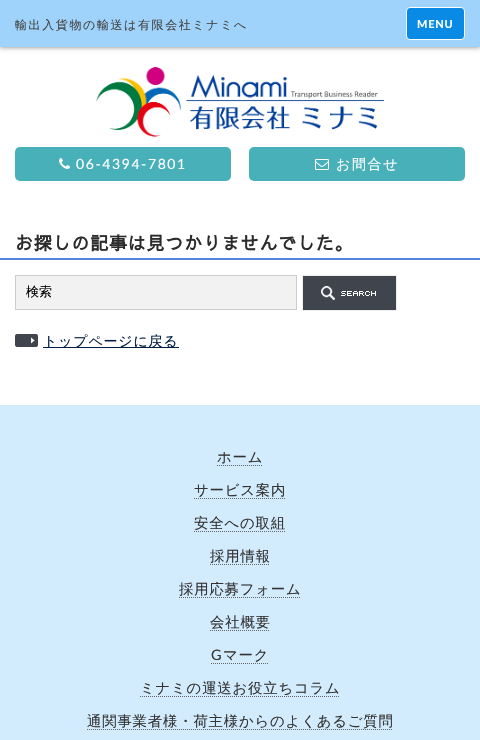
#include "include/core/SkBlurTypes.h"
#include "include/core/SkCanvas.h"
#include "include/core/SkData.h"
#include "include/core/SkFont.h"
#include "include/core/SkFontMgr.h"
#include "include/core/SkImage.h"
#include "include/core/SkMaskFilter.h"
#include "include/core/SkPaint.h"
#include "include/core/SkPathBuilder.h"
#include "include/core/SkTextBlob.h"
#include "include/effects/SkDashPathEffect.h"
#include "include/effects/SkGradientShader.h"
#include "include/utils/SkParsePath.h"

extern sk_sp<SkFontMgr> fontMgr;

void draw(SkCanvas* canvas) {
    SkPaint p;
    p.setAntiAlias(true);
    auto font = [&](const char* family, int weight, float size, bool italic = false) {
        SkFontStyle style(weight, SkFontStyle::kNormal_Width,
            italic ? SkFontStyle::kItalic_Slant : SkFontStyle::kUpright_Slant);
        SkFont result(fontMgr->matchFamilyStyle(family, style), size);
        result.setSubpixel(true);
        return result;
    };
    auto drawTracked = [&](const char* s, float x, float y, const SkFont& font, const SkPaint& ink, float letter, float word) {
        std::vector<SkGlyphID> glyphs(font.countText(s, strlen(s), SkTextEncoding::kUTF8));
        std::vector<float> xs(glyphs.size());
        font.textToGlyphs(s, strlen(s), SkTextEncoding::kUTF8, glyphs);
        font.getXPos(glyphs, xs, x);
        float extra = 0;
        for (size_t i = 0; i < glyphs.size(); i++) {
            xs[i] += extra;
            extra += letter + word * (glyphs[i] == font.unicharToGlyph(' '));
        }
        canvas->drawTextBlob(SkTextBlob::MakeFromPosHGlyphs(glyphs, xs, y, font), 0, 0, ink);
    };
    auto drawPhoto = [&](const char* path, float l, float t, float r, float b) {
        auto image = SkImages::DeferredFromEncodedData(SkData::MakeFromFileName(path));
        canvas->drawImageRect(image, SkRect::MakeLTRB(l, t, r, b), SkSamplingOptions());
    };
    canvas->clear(0xFFFFFFFF);
    p.setColor(0x80000000);
    p.setMaskFilter(SkMaskFilter::MakeBlur(kNormal_SkBlurStyle, 2.5f));
    canvas->drawRect(SkRect::MakeLTRB(0, 0, 480, 47), p);
    p.setMaskFilter(nullptr);
    p.setColor(0xFF9FD3FB);
    canvas->drawRect(SkRect::MakeLTRB(0, 0, 480, 47), p);
    auto font1 = font("WenQuanYi Zen Hei", 500, 12);
    p.setColor(0xFF444444);
    drawTracked("輸出入貨物の輸送は有限会社ミナミへ", 15, 29, font1, p, 1.6f, 0);
    p.setColor(0xFF098AE5);
    canvas->drawRoundRect(SkRect::MakeLTRB(406.5f, 7.5f, 464.5f, 39.5f), 3.5f, 3.5f, p);
    p.setStyle(SkPaint::kStroke_Style);
    p.setStrokeWidth(1);
    p.setColor(0xFFFFFFFF);
    canvas->drawRoundRect(SkRect::MakeLTRB(406.5f, 7.5f, 464.5f, 39.5f), 3.5f, 3.5f, p);
    auto font2 = font("Lato", 700, 11);
    p.setStyle(SkPaint::kFill_Style);
    drawTracked("MENU", 417, 28, font2, p, 0.8f, 0);
    drawPhoto("media/1.png", 96, 67, 384, 137);
    p.setColor(0xFF48B0B9);
    canvas->drawRoundRect(SkRect::MakeLTRB(15, 147, 231, 181), 5, 5, p);
    drawPhoto("media/2.png", 59, 158, 70, 169);
    auto font3 = font("Lato", 400, 14);
    p.setColor(0xFFFFFFFF);
    drawTracked("06-4394-7801", 76, 169, font3, p, 1.6f, 0);
    p.setColor(0xFF48B0B9);
    canvas->drawRoundRect(SkRect::MakeLTRB(249, 147, 465, 181), 5, 5, p);
    drawPhoto("media/3.png", 315, 159, 329, 170);
    auto font4 = font("WenQuanYi Zen Hei", 500, 14);
    p.setColor(0xFFFFFFFF);
    drawTracked("お問合せ", 336, 169, font4, p, 1.6f, 0);
    p.setColor(0xFF5483DA);
    canvas->drawRect(SkRect::MakeLTRB(0, 258, 480, 260), p);
    auto font5 = font("Sawarabi Gothic", 700, 18);
    p.setColor(0xFF2B2B2B);
    drawTracked("お探しの記事は見つかりませんでした。", 15, 250, font5, p, 0.8f, 0);
    p.setColor(0xFFF2F2F2);
    canvas->drawRect(SkRect::MakeLTRB(15.5f, 275.5f, 296.5f, 309.5f), p);
    p.setStyle(SkPaint::kStroke_Style);
    p.setColor(0xFFCCCCCC);
    canvas->drawRect(SkRect::MakeLTRB(15.5f, 275.5f, 296.5f, 309.5f), p);
    auto font6 = font("WenQuanYi Zen Hei", 500, 13);
    p.setStyle(SkPaint::kFill_Style);
    p.setColor(0xFF000000);
    canvas->drawString("検索", 26, 296, font6, p);
    drawPhoto("media/4.png", 302, 275, 397, 311);
    drawPhoto("media/5.png", 15, 334, 38, 347);
    p.setColor(0xFF001E43);
    canvas->drawRect(SkRect::MakeLTRB(43, 347, 179, 348), p);
    drawTracked("トップページに戻る", 43, 346, font4, p, 0.8f, 0);
    p.setColor(0xFFD2EBFD);
    canvas->drawRect(SkRect::MakeLTRB(0, 405, 480, 740), p);
    auto font7 = font("WenQuanYi Zen Hei", 500, 14.4f);
    p.setColor(0xFF333333);
    drawTracked("ホーム", 217, 462, font7, p, 0.8f, 0);
    p.setStyle(SkPaint::kStroke_Style);
    p.setColor(0xFF666666);
    p.setPathEffect(SkDashPathEffect::Make({{1, 1}}, 0));
    canvas->drawPath(SkPathBuilder().moveTo(217, 465.5f).lineTo(263, 465.5f).detach(), p);
    p.setPathEffect(nullptr);
    p.setStyle(SkPaint::kFill_Style);
    p.setColor(0xFF333333);
    drawTracked("サービス案内", 194, 495, font7, p, 0.8f, 0);
    p.setStyle(SkPaint::kStroke_Style);
    p.setColor(0xFF666666);
    p.setPathEffect(SkDashPathEffect::Make({{1, 1}}, 0));
    canvas->drawPath(SkPathBuilder().moveTo(194, 498.5f).lineTo(286, 498.5f).detach(), p);
    p.setPathEffect(nullptr);
    p.setStyle(SkPaint::kFill_Style);
    p.setColor(0xFF333333);
    drawTracked("安全への取組", 194, 528, font7, p, 0.8f, 0);
    p.setStyle(SkPaint::kStroke_Style);
    p.setColor(0xFF666666);
    p.setPathEffect(SkDashPathEffect::Make({{1, 1}}, 0));
    canvas->drawPath(SkPathBuilder().moveTo(194, 531.5f).lineTo(286, 531.5f).detach(), p);
    p.setPathEffect(nullptr);
    p.setStyle(SkPaint::kFill_Style);
    p.setColor(0xFF333333);
    drawTracked("採用情報", 210, 561, font7, p, 0.8f, 0);
    p.setStyle(SkPaint::kStroke_Style);
    p.setColor(0xFF666666);
    p.setPathEffect(SkDashPathEffect::Make({{1, 1}}, 0));
    canvas->drawPath(SkPathBuilder().moveTo(210, 564.5f).lineTo(270, 564.5f).detach(), p);
    p.setPathEffect(nullptr);
    p.setStyle(SkPaint::kFill_Style);
    p.setColor(0xFF333333);
    drawTracked("採用応募フォーム", 179, 594, font7, p, 0.8f, 0);
    p.setStyle(SkPaint::kStroke_Style);
    p.setColor(0xFF666666);
    p.setPathEffect(SkDashPathEffect::Make({{1, 1}}, 0));
    canvas->drawPath(SkPathBuilder().moveTo(179, 597.5f).lineTo(301, 597.5f).detach(), p);
    p.setPathEffect(nullptr);
    p.setStyle(SkPaint::kFill_Style);
    p.setColor(0xFF333333);
    drawTracked("会社概要", 210, 627, font7, p, 0.8f, 0);
    p.setStyle(SkPaint::kStroke_Style);
    p.setColor(0xFF666666);
    p.setPathEffect(SkDashPathEffect::Make({{1, 1}}, 0));
    canvas->drawPath(SkPathBuilder().moveTo(210, 630.5f).lineTo(270, 630.5f).detach(), p);
    p.setPathEffect(nullptr);
    auto font8 = font("Lato", 400, 14.4f);
    p.setStyle(SkPaint::kFill_Style);
    p.setColor(0xFF333333);
    drawTracked("G", 211, 660, font8, p, 0.8f, 0);
    drawTracked("マーク", 223, 660, font7, p, 0.8f, 0);
    p.setStyle(SkPaint::kStroke_Style);
    p.setColor(0xFF666666);
    p.setPathEffect(SkDashPathEffect::Make({{1, 1}}, 0));
    canvas->drawPath(SkPathBuilder().moveTo(211, 663.5f).lineTo(269, 663.5f).detach(), p);
    p.setPathEffect(nullptr);
    p.setStyle(SkPaint::kFill_Style);
    p.setColor(0xFF333333);
    drawTracked("ミナミの運送お役立ちコラム", 140, 693, font7, p, 0.8f, 0);
    p.setStyle(SkPaint::kStroke_Style);
    p.setColor(0xFF666666);
    p.setPathEffect(SkDashPathEffect::Make({{1, 1}}, 0));
    canvas->drawPath(SkPathBuilder().moveTo(140, 696.5f).lineTo(340, 696.5f).detach(), p);
    p.setPathEffect(nullptr);
    p.setStyle(SkPaint::kFill_Style);
    p.setColor(0xFF333333);
    drawTracked("通関事業者様・荷主様からのよくあるご質問", 87, 726, font7, p, 0.8f, 0);
    p.setStyle(SkPaint::kStroke_Style);
    p.setColor(0xFF666666);
    p.setPathEffect(SkDashPathEffect::Make({{1, 1}}, 0));
    canvas->drawPath(SkPathBuilder().moveTo(87, 729.5f).lineTo(393, 729.5f).detach(), p);
    p.setPathEffect(nullptr);
}
